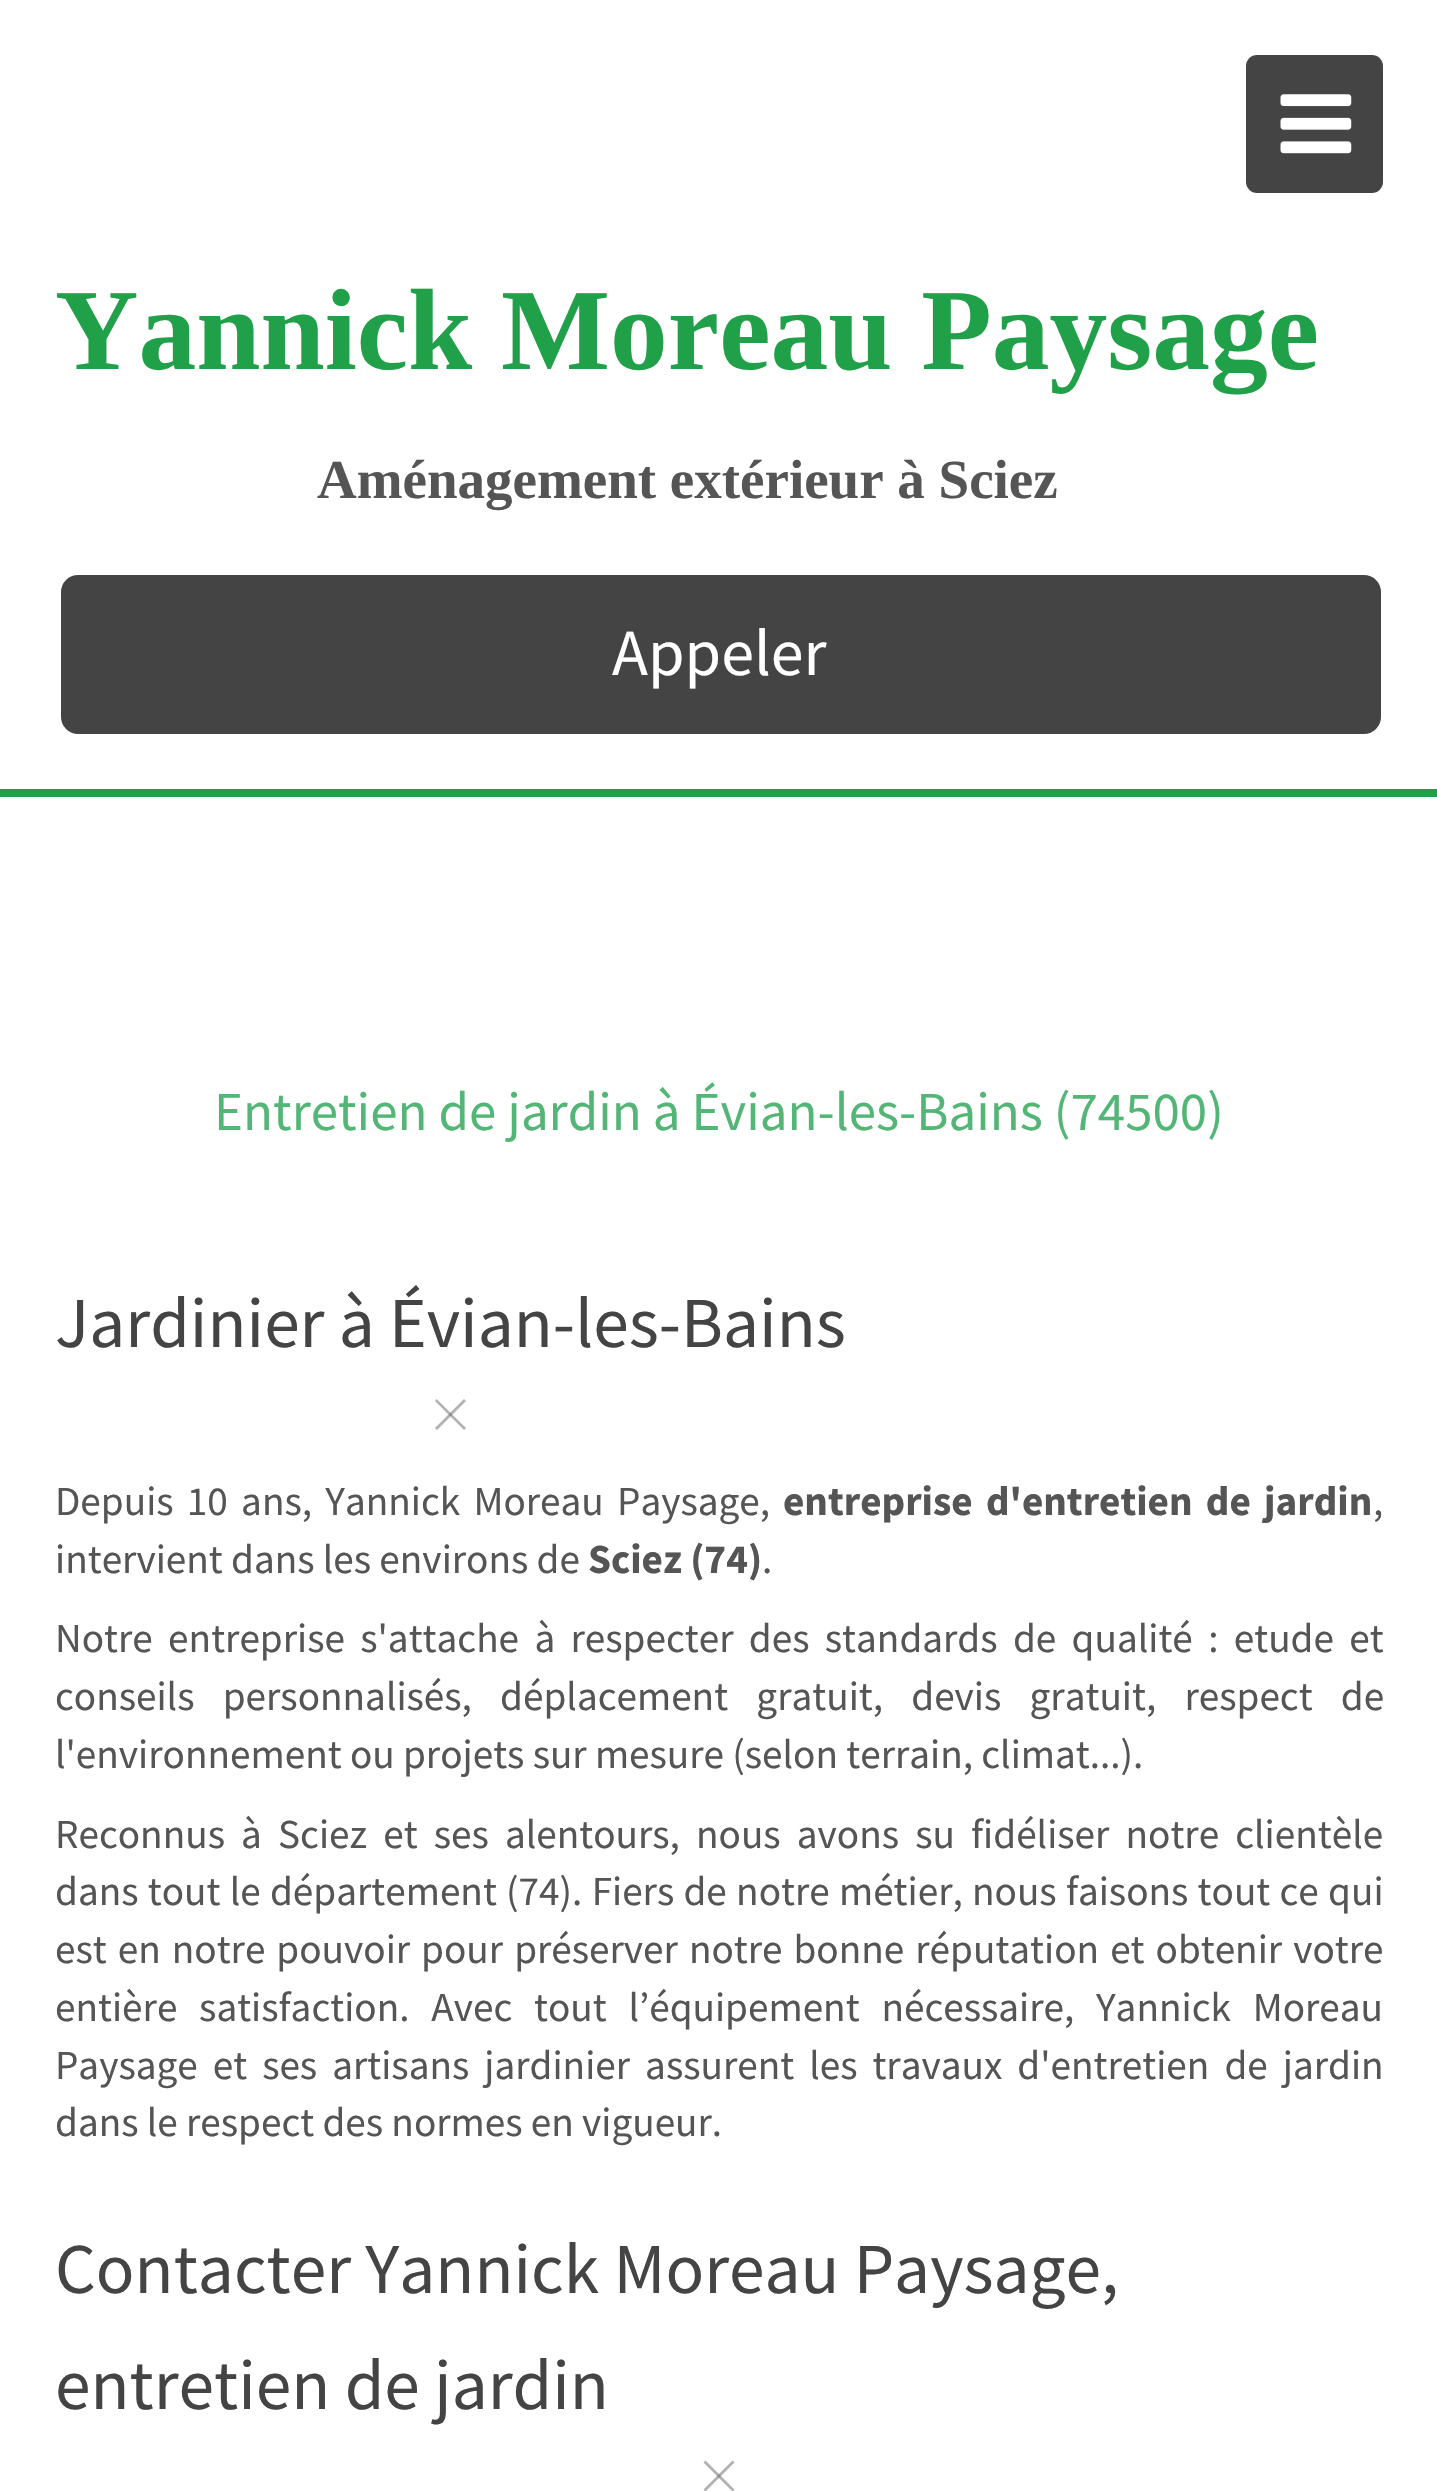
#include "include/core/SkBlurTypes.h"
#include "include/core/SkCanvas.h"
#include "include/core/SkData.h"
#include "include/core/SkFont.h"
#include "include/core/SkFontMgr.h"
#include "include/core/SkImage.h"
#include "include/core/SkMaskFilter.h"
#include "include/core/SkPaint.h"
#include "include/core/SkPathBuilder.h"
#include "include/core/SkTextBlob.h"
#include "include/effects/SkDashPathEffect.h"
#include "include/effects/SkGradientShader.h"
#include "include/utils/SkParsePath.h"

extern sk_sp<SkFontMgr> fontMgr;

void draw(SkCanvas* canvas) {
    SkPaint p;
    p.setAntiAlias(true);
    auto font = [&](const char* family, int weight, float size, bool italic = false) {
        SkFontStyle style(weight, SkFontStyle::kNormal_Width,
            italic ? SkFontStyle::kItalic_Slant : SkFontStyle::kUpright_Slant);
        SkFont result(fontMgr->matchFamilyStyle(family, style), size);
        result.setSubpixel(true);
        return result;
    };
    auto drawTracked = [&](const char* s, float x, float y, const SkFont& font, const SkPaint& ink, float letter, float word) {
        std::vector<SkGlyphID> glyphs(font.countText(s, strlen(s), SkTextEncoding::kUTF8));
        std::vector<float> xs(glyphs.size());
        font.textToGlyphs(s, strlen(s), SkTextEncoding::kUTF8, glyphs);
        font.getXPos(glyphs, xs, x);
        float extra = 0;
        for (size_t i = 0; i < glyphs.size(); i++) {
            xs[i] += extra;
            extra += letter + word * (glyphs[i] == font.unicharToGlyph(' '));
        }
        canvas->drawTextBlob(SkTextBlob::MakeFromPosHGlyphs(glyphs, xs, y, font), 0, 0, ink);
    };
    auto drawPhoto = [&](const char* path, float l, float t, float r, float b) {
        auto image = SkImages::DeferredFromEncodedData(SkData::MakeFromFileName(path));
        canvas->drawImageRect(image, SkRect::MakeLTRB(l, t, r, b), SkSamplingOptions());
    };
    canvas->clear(0xFFFFFFFF);
    p.setColor(0xFF20A048);
    canvas->drawRect(SkRect::MakeLTRB(0, 789, 1437, 797), p);
    p.setColor(0xFF444444);
    canvas->drawRoundRect(SkRect::MakeLTRB(1246, 55, 1383, 193), 11, 11, p);
    drawPhoto("media/1.png", 1280, 94, 1352, 154);
    auto font1 = font("Liberation Serif", 700, 115.5f);
    p.setColor(0xFF20A048);
    canvas->drawString("Yannick Moreau Paysage", 55, 369, font1, p);
    auto font2 = font("Liberation Serif", 700, 55);
    p.setColor(0xFF555555);
    canvas->drawString("Aménagement extérieur à Sciez", 317, 498, font2, p);
    p.setColor(0xFF444444);
    canvas->drawRoundRect(SkRect::MakeLTRB(61, 575, 1381, 734), 17, 17, p);
    auto font3 = font("Source Sans Pro", 400, 66);
    p.setColor(0xFFFFFFFF);
    canvas->drawString("Appeler", 612, 675, font3, p);
    auto font4 = font("Source Sans Pro", 400, 55);
    p.setColor(0xFF54B676);
    canvas->drawString("Entretien de jardin à Évian-les-Bains (74500)", 214, 1130, font4, p);
    auto font5 = font("Source Sans Pro", 400, 71.5f);
    p.setColor(0xFF444444);
    canvas->drawString("Jardinier à Évian-les-Bains", 55, 1347, font5, p);
    p.setColor(0xFFB2B2B2);
    canvas->drawPath(SkPathBuilder().moveTo(436.5f, 1399).lineTo(466, 1428).lineTo(464, 1430).lineTo(435, 1401).close().detach(), p);
    p.setColor(0x80646464);
    canvas->drawPath(SkPathBuilder().moveTo(435, 1428).lineTo(464, 1399).lineTo(466, 1401).lineTo(437, 1430).close().detach(), p);
    auto font6 = font("Source Sans Pro", 400, 41.25f);
    p.setColor(0xFF555555);
    drawTracked("Depuis 10 ans, Yannick Moreau Paysage,", 55, 1515, font6, p, 0, 5);
    auto font7 = font("Source Sans Pro", 700, 41.25f);
    drawTracked("entreprise d'entretien de jardin", 783, 1515, font7, p, 0, 5);
    canvas->drawString(",", 1373, 1515, font6, p);
    canvas->drawString("intervient dans les environs de", 55, 1573, font6, p);
    canvas->drawString("Sciez (74)", 588, 1573, font7, p);
    canvas->drawString(".", 762, 1573, font6, p);
    drawTracked("Notre entreprise s'attache à respecter des standards de qualité : etude et", 55, 1652, font6, p, 0, 7.1f);
    drawTracked("conseils personnalisés, déplacement gratuit, devis gratuit, respect de", 55, 1710, font6, p, 0, 20);
    canvas->drawString("l'environnement ou projets sur mesure (selon terrain, climat...).", 55, 1768, font6, p);
    drawTracked("Reconnus à Sciez et ses alentours, nous avons su fidéliser notre clientèle", 55, 1848, font6, p, 0, 7.9f);
    drawTracked("dans tout le département (74). Fiers de notre métier, nous faisons tout ce qui", 55, 1905, font6, p, 0, 1);
    drawTracked("est en notre pouvoir pour préserver notre bonne réputation et obtenir votre", 55, 1963, font6, p, 0, 2.75f);
    drawTracked("entière satisfaction. Avec tout l’équipement nécessaire, Yannick Moreau", 55, 2021, font6, p, 0, 13.5f);
    drawTracked("Paysage et ses artisans jardinier assurent les travaux d'entretien de jardin", 55, 2079, font6, p, 0, 6.75f);
    canvas->drawString("dans le respect des normes en vigueur.", 55, 2136, font6, p);
    p.setColor(0xFF444444);
    canvas->drawString("Contacter Yannick Moreau Paysage,", 55, 2293, font5, p);
    canvas->drawString("entretien de jardin", 55, 2409, font5, p);
    p.setColor(0xFFB2B2B2);
    canvas->drawPath(SkPathBuilder().moveTo(705.5f, 2460.5f).lineTo(734.5f, 2489.5f).lineTo(732.5f, 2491.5f).lineTo(703.5f, 2462.5f).close().detach(), p);
    p.setColor(0x80646464);
    canvas->drawPath(SkPathBuilder().moveTo(703.5f, 2489.5f).lineTo(732.5f, 2460.5f).lineTo(734.5f, 2462.5f).lineTo(705.5f, 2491.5f).close().detach(), p);
}
